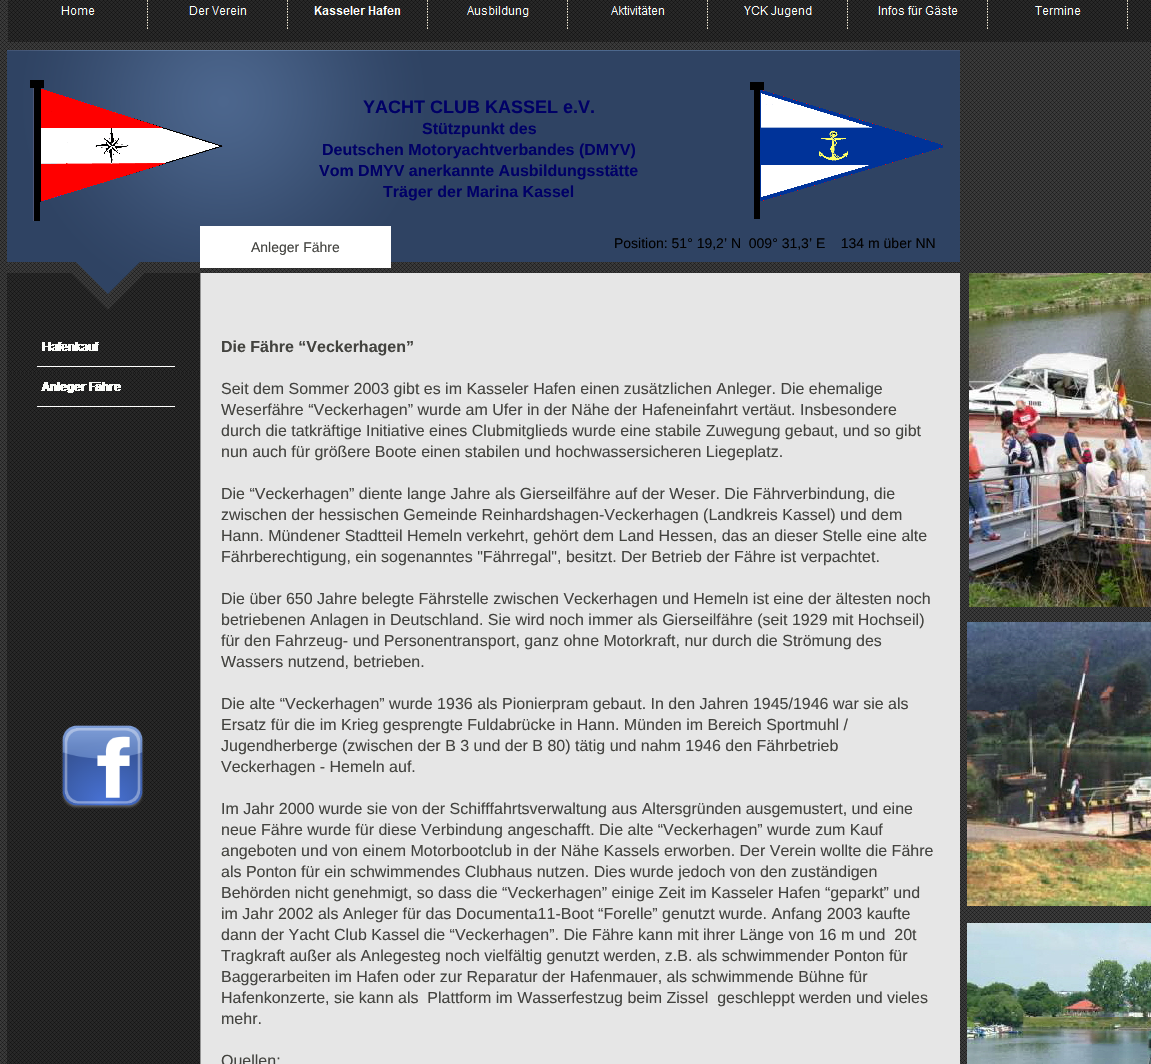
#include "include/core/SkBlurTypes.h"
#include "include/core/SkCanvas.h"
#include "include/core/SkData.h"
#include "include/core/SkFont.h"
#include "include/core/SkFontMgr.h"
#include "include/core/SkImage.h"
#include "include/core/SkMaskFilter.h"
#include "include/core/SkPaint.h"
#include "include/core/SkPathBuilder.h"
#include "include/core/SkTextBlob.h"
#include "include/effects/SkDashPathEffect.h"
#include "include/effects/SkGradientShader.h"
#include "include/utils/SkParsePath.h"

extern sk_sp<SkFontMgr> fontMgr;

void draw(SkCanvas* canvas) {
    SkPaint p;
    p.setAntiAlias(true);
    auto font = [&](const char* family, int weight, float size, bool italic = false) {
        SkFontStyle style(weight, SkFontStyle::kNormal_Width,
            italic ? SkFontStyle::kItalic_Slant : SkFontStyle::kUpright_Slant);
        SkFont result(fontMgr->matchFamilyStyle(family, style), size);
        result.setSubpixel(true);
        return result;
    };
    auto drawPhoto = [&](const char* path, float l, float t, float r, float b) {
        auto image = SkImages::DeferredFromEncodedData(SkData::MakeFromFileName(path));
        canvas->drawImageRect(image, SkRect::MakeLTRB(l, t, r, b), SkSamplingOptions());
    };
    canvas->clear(0xFFFFFFFF);
    drawPhoto("media/1.png", 0, 0, 1151, 1064);
    drawPhoto("media/2.png", 7, 0, 960, 50);
    drawPhoto("media/3.png", 8, 0, 148, 42);
    drawPhoto("media/4.png", 148, 0, 288, 42);
    drawPhoto("media/5.png", 288, 0, 428, 42);
    drawPhoto("media/6.png", 428, 0, 568, 42);
    drawPhoto("media/7.png", 568, 0, 708, 42);
    drawPhoto("media/8.png", 708, 0, 848, 42);
    drawPhoto("media/9.png", 848, 0, 988, 42);
    drawPhoto("media/10.png", 988, 0, 1128, 42);
    drawPhoto("media/11.png", 1128, 0, 1151, 42);
    drawPhoto("media/12.png", 7, 50, 960, 273);
    drawPhoto("media/13.png", 30, 80, 223, 221);
    auto font1 = font("Liberation Sans", 700, 18);
    p.setColor(0xFF000066);
    canvas->drawString("YACHT CLUB KASSEL e.V.", 363, 113, font1, p);
    auto font2 = font("Liberation Sans", 700, 16);
    {
        const struct { const char* s; float x, y; } items[] = {
            {"Stützpunkt des", 422, 134},
            {"Deutschen Motoryachtverbandes (DMYV)", 322, 155},
            {"Vom DMYV anerkannte Ausbildungsstätte", 319, 176},
            {"Träger der Marina Kassel", 383, 197},
        };
        for (auto [s, x, y] : items) {
            canvas->drawString(s, x, y, font2, p);
        }
    }
    drawPhoto("media/14.png", 750, 82, 943, 219);
    p.setColor(0xFFFFFFFF);
    canvas->drawRect(SkRect::MakeLTRB(200, 226, 391, 268), p);
    auto font3 = font("Liberation Sans", 400, 14);
    p.setColor(0xFF43433F);
    canvas->drawString("Anleger Fähre", 251, 252, font3, p);
    p.setColor(0xFF000000);
    canvas->drawString("Position: 51° 19,2’ N  009° 31,3’ E    134 m über NN", 614, 248, font3, p);
    drawPhoto("media/15.png", 7, 273, 200, 373);
    drawPhoto("media/16.png", 37, 342, 175, 367);
    drawPhoto("media/17.png", 37, 382, 175, 407);
    drawPhoto("media/18.png", 61, 725, 144, 809);
    p.setColor(0xFF43433F);
    canvas->drawString("Die Fähre “Veckerhagen”", 221, 352, font2, p);
    auto font4 = font("Liberation Sans", 400, 16);
    {
        const struct { const char* s; float x, y; } items[] = {
            {"Seit dem Sommer 2003 gibt es im Kasseler Hafen einen zusätzlichen Anleger. Die ehemalige", 221, 394},
            {"Weserfähre “Veckerhagen” wurde am Ufer in der Nähe der Hafeneinfahrt vertäut. Insbesondere", 221, 415},
            {"durch die tatkräftige Initiative eines Clubmitglieds wurde eine stabile Zuwegung gebaut, und so gibt", 221, 436},
            {"nun auch für größere Boote einen stabilen und hochwassersicheren Liegeplatz.", 221, 457},
            {"Die “Veckerhagen” diente lange Jahre als Gierseilfähre auf der Weser. Die Fährverbindung, die", 221, 499},
            {"zwischen der hessischen Gemeinde Reinhardshagen-Veckerhagen (Landkreis Kassel) und dem", 221, 520},
            {"Hann. Mündener Stadtteil Hemeln verkehrt, gehört dem Land Hessen, das an dieser Stelle eine alte", 221, 541},
            {"Fährberechtigung, ein sogenanntes \"Fährregal\", besitzt. Der Betrieb der Fähre ist verpachtet.", 221, 562},
            {"Die über 650 Jahre belegte Fährstelle zwischen Veckerhagen und Hemeln ist eine der ältesten noch", 221, 604},
            {"betriebenen Anlagen in Deutschland. Sie wird noch immer als Gierseilfähre (seit 1929 mit Hochseil)", 221, 625},
            {"für den Fahrzeug- und Personentransport, ganz ohne Motorkraft, nur durch die Strömung des", 221, 646},
            {"Wassers nutzend, betrieben.", 221, 667},
            {"Die alte “Veckerhagen” wurde 1936 als Pionierpram gebaut. In den Jahren 1945/1946 war sie als", 221, 709},
            {"Ersatz für die im Krieg gesprengte Fuldabrücke in Hann. Münden im Bereich Sportmuhl /", 221, 730},
            {"Jugendherberge (zwischen der B 3 und der B 80) tätig und nahm 1946 den Fährbetrieb", 221, 751},
            {"Veckerhagen - Hemeln auf.", 221, 772},
            {"Im Jahr 2000 wurde sie von der Schifffahrtsverwaltung aus Altersgründen ausgemustert, und eine", 221, 814},
            {"neue Fähre wurde für diese Verbindung angeschafft. Die alte “Veckerhagen” wurde zum Kauf", 221, 835},
            {"angeboten und von einem Motorbootclub in der Nähe Kassels erworben. Der Verein wollte die Fähre", 221, 856},
            {"als Ponton für ein schwimmendes Clubhaus nutzen. Dies wurde jedoch von den zuständigen", 221, 877},
            {"Behörden nicht genehmigt, so dass die “Veckerhagen” einige Zeit im Kasseler Hafen “geparkt” und", 221, 898},
            {"im Jahr 2002 als Anleger für das Documenta11-Boot “Forelle” genutzt wurde. Anfang 2003 kaufte", 221, 919},
            {"dann der Yacht Club Kassel die “Veckerhagen”. Die Fähre kann mit ihrer Länge von 16 m und  20t", 221, 940},
            {"Tragkraft außer als Anlegesteg noch vielfältig genutzt werden, z.B. als schwimmender Ponton für", 221, 961},
            {"Baggerarbeiten im Hafen oder zur Reparatur der Hafenmauer, als schwimmende Bühne für", 221, 982},
            {"Hafenkonzerte, sie kann als  Plattform im Wasserfestzug beim Zissel  geschleppt werden und vieles", 221, 1003},
            {"mehr.", 221, 1024},
            {"Quellen:", 221, 1066},
        };
        for (auto [s, x, y] : items) {
            canvas->drawString(s, x, y, font4, p);
        }
    }
    drawPhoto("media/19.png", 969, 273, 1151, 607);
    drawPhoto("media/20.png", 967, 622, 1151, 906);
    drawPhoto("media/21.png", 967, 923, 1151, 1064);
}
